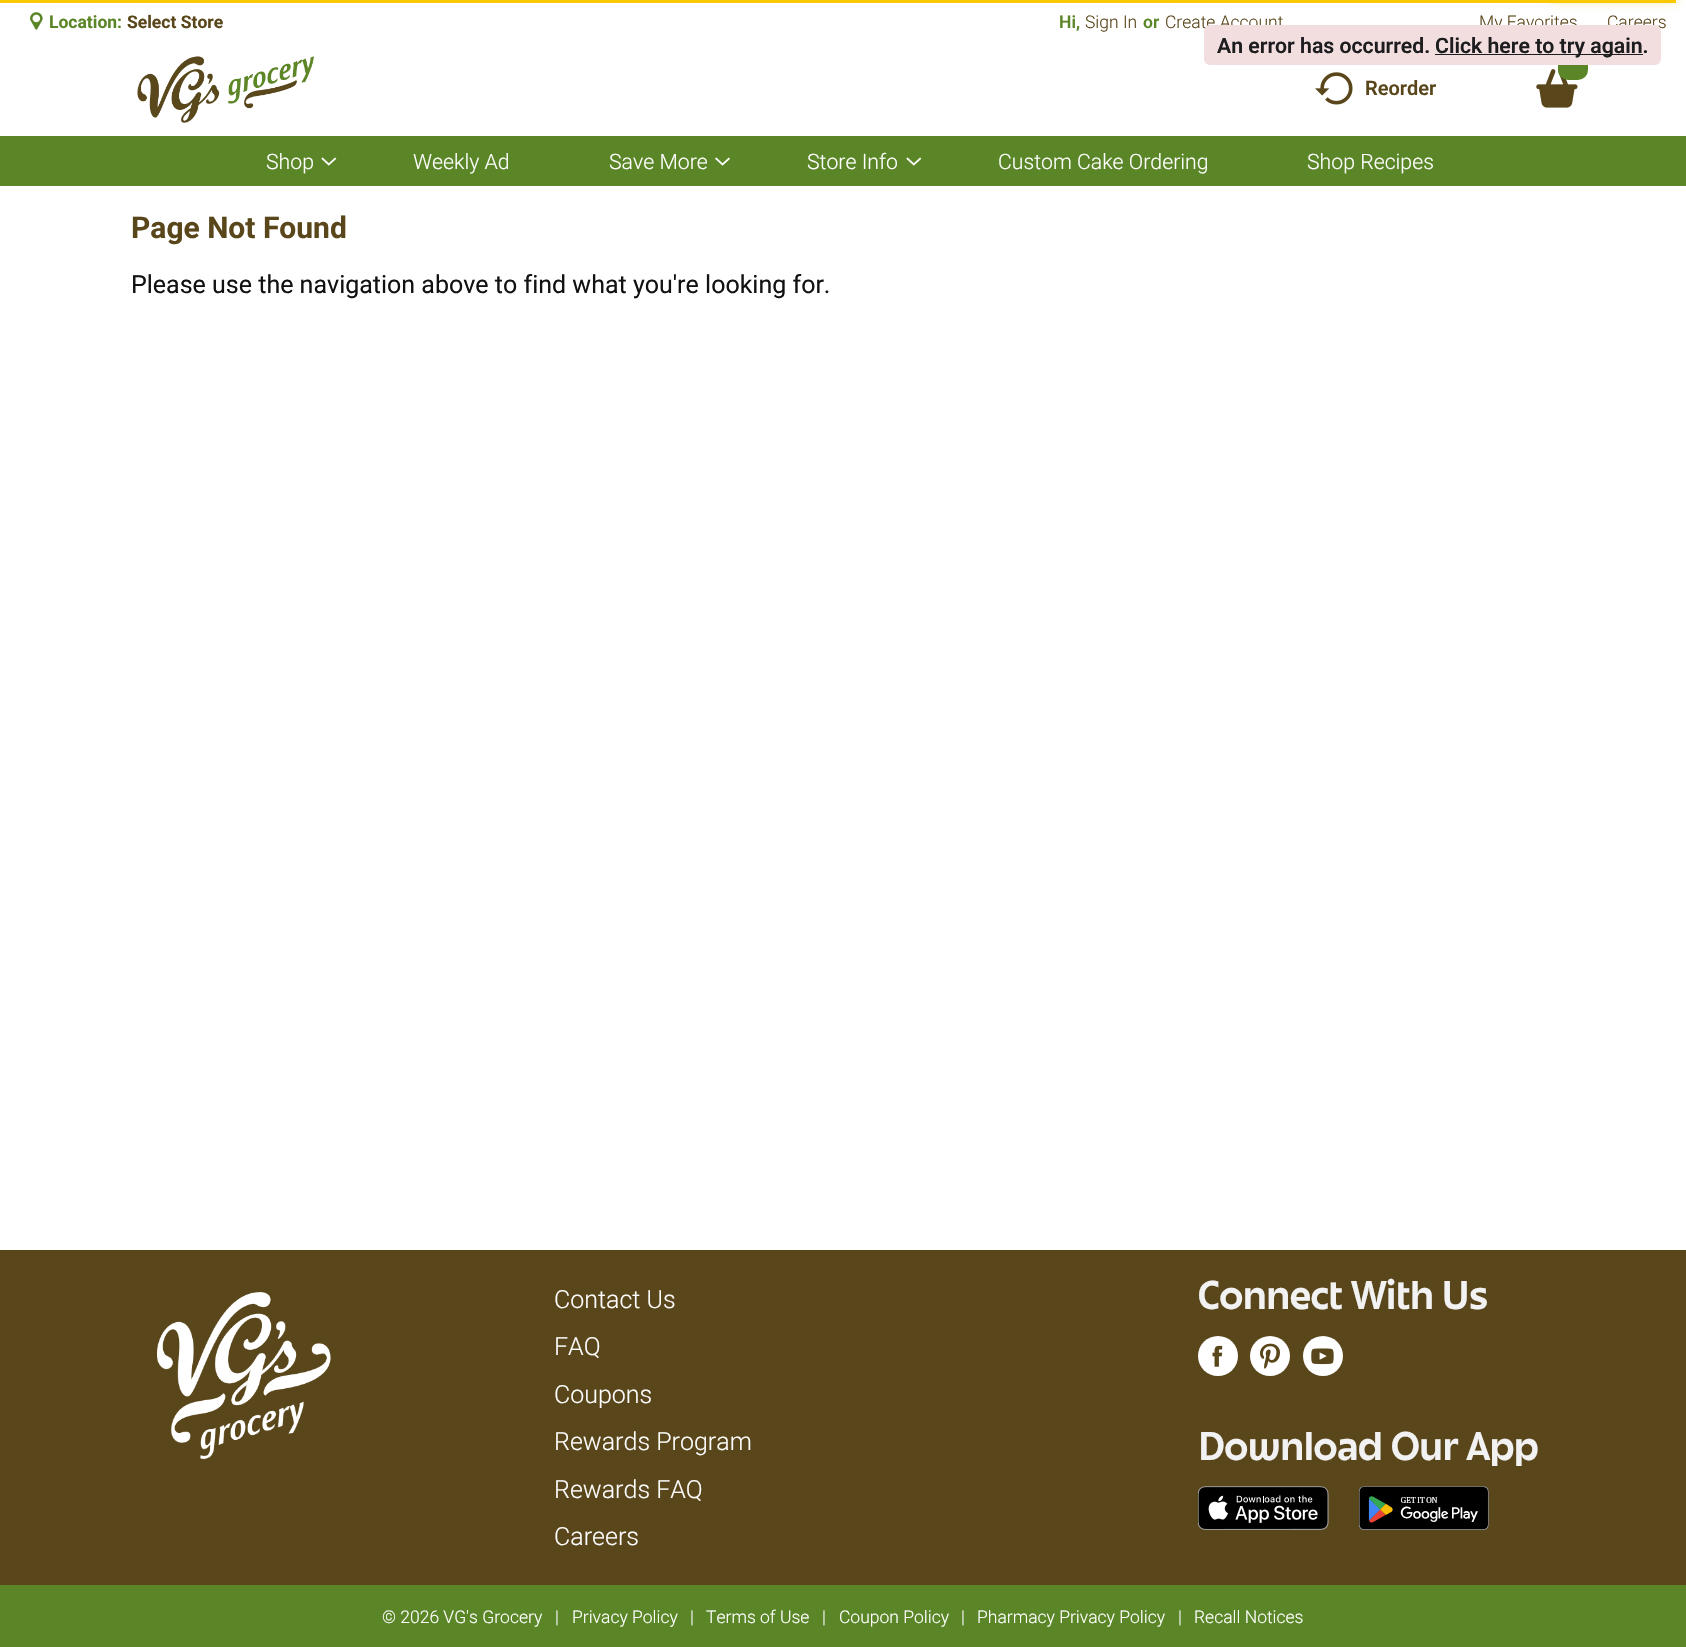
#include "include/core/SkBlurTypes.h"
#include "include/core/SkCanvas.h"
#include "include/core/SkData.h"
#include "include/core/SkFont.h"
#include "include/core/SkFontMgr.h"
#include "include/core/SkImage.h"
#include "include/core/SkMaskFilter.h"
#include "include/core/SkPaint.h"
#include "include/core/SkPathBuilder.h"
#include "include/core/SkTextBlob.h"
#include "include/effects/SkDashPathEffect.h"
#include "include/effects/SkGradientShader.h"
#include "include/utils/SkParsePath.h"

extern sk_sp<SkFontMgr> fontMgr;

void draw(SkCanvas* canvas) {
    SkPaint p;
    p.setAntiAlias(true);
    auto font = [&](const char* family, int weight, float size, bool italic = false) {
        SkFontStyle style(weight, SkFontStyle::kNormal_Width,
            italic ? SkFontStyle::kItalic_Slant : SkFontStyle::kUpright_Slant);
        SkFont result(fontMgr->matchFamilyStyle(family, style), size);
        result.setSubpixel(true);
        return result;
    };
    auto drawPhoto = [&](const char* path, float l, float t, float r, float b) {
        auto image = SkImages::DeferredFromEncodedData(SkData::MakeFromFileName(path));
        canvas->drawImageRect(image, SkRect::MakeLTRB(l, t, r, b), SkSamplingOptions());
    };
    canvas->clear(0xFFFFFFFF);
    drawPhoto("media/1.png", 30, 12, 43, 30);
    auto font1 = font("Roboto", 700, 17.5f);
    p.setColor(0xFF5B8627);
    canvas->drawString("Location:", 49, 28, font1, p);
    p.setColor(0xFF5A461B);
    canvas->drawString("Select Store", 127, 28, font1, p);
    auto font2 = font("Roboto", 600, 17.5f);
    p.setColor(0xFF5B8627);
    canvas->drawString("Hi,", 1059, 28, font2, p);
    auto font3 = font("Roboto", 300, 17.5f);
    p.setColor(0xFF5A461B);
    canvas->drawString("Sign In", 1085, 28, font3, p);
    p.setColor(0xFF5B8627);
    canvas->drawString("or", 1143, 28, font2, p);
    p.setColor(0xFF5A461B);
    {
        const struct { const char* s; float x, y; } items[] = {
            {"Create Account", 1165, 28},
            {"My Favorites", 1479, 28},
            {"Careers", 1607, 28},
        };
        for (auto [s, x, y] : items) {
            canvas->drawString(s, x, y, font3, p);
        }
    }
    drawPhoto("media/2.png", 137, 56, 314, 123);
    drawPhoto("media/3.png", 1315, 72, 1353, 105);
    auto font4 = font("Roboto", 600, 20);
    canvas->drawString("Reorder", 1365, 95, font4, p);
    drawPhoto("media/4.png", 1536, 69, 1578, 108);
    p.setColor(0xFF5B8627);
    canvas->drawRoundRect(SkRect::MakeLTRB(1558, 51, 1588, 80), 10, 10, p);
    canvas->drawRect(SkRect::MakeLTRB(0, 136, 1686, 186), p);
    auto font5 = font("Roboto", 300, 21.25f);
    p.setColor(0xFFFFFFFF);
    canvas->drawString("Shop", 266, 169, font5, p);
    drawPhoto("media/5.png", 321, 157, 337, 166);
    canvas->drawString("Weekly Ad", 413, 169, font5, p);
    canvas->drawString("Save More", 609, 169, font5, p);
    drawPhoto("media/6.png", 715, 157, 730, 166);
    canvas->drawString("Store Info", 807, 169, font5, p);
    drawPhoto("media/5.png", 906, 157, 922, 166);
    canvas->drawString("Custom Cake Ordering", 998, 169, font5, p);
    canvas->drawString("Shop Recipes", 1307, 169, font5, p);
    auto font6 = font("Roboto", 700, 30);
    p.setColor(0xFF5A461B);
    canvas->drawString("Page Not Found", 131, 238, font6, p);
    auto font7 = font("Roboto", 400, 25);
    p.setColor(0xFF121212);
    canvas->drawString("Please use the navigation above to find what you're looking for.", 131, 293, font7, p);
    p.setColor(0xFF5A461B);
    canvas->drawRect(SkRect::MakeLTRB(0, 1250, 1686, 1585), p);
    drawPhoto("media/7.png", 157, 1292, 331, 1460);
    auto font8 = font("Roboto", 300, 25);
    p.setColor(0xFFFFFFFF);
    {
        const struct { const char* s; float x, y; } items[] = {
            {"Contact Us", 554, 1308},
            {"FAQ", 554, 1355},
            {"Coupons", 554, 1403},
            {"Rewards Program", 554, 1450},
            {"Rewards FAQ", 554, 1498},
            {"Careers", 554, 1545},
        };
        for (auto [s, x, y] : items) {
            canvas->drawString(s, x, y, font8, p);
        }
    }
    auto font9 = font("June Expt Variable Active", 400, 35);
    p.setColor(0xFFF2F2F2);
    canvas->drawString("Connect With Us", 1198, 1309, font9, p);
    p.setColor(0xFFFFFFFF);
    canvas->drawCircle(1218, 1356, 20, p);
    drawPhoto("media/8.png", 1212, 1345, 1223, 1367);
    canvas->drawCircle(1270, 1356, 20, p);
    drawPhoto("media/9.png", 1260, 1343, 1280, 1369);
    canvas->drawCircle(1323, 1356, 20, p);
    drawPhoto("media/10.png", 1311, 1348, 1334, 1365);
    p.setColor(0xFFF2F2F2);
    canvas->drawString("Download Our App", 1198, 1460, font9, p);
    drawPhoto("media/11.png", 1198, 1486, 1329, 1530);
    drawPhoto("media/12.png", 1359, 1486, 1489, 1530);
    p.setColor(0xFF5B8627);
    canvas->drawRect(SkRect::MakeLTRB(0, 1585, 1686, 1647), p);
    p.setColor(0xFFFFFFFF);
    canvas->drawString("© 2026 VG's Grocery", 382, 1623, font3, p);
    p.setColor(0xFFF2F2F2);
    canvas->drawString("|", 555, 1623, font3, p);
    p.setColor(0xFFFFFFFF);
    canvas->drawString("Privacy Policy", 572, 1623, font3, p);
    p.setColor(0xFFF2F2F2);
    canvas->drawString("|", 690, 1623, font3, p);
    p.setColor(0xFFFFFFFF);
    canvas->drawString("Terms of Use", 706, 1623, font3, p);
    p.setColor(0xFFF2F2F2);
    canvas->drawString("|", 822, 1623, font3, p);
    p.setColor(0xFFFFFFFF);
    canvas->drawString("Coupon Policy", 839, 1623, font3, p);
    p.setColor(0xFFF2F2F2);
    canvas->drawString("|", 961, 1623, font3, p);
    p.setColor(0xFFFFFFFF);
    canvas->drawString("Pharmacy Privacy Policy", 977, 1623, font3, p);
    p.setColor(0xFFF2F2F2);
    canvas->drawString("|", 1178, 1623, font3, p);
    p.setColor(0xFFFFFFFF);
    canvas->drawString("Recall Notices", 1194, 1623, font3, p);
    p.setColor(0xFFFAC901);
    canvas->drawRect(SkRect::MakeLTRB(0, 0, 1676, 3), p);
    p.setMaskFilter(SkMaskFilter::MakeBlur(kNormal_SkBlurStyle, 3));
    canvas->drawRect(SkRect::MakeLTRB(1551, -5, 1676, -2), p);
    p.setMaskFilter(nullptr);
    p.setMaskFilter(SkMaskFilter::MakeBlur(kNormal_SkBlurStyle, 6.5f));
    canvas->drawRect(SkRect::MakeLTRB(1551, -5, 1676, -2), p);
    p.setMaskFilter(nullptr);
    p.setColor(0xFFF2DEDE);
    canvas->drawRoundRect(SkRect::MakeLTRB(1204, 25, 1661, 65), 6, 6, p);
    auto font10 = font("Roboto", 600, 21.25f);
    p.setColor(0xFF1D1D1F);
    canvas->drawString("An error has occurred.", 1217, 53, font10, p);
    canvas->drawRect(SkRect::MakeLTRB(1435, 54, 1643, 55), p);
    canvas->drawString("Click here to try again.", 1435, 53, font10, p);
}
